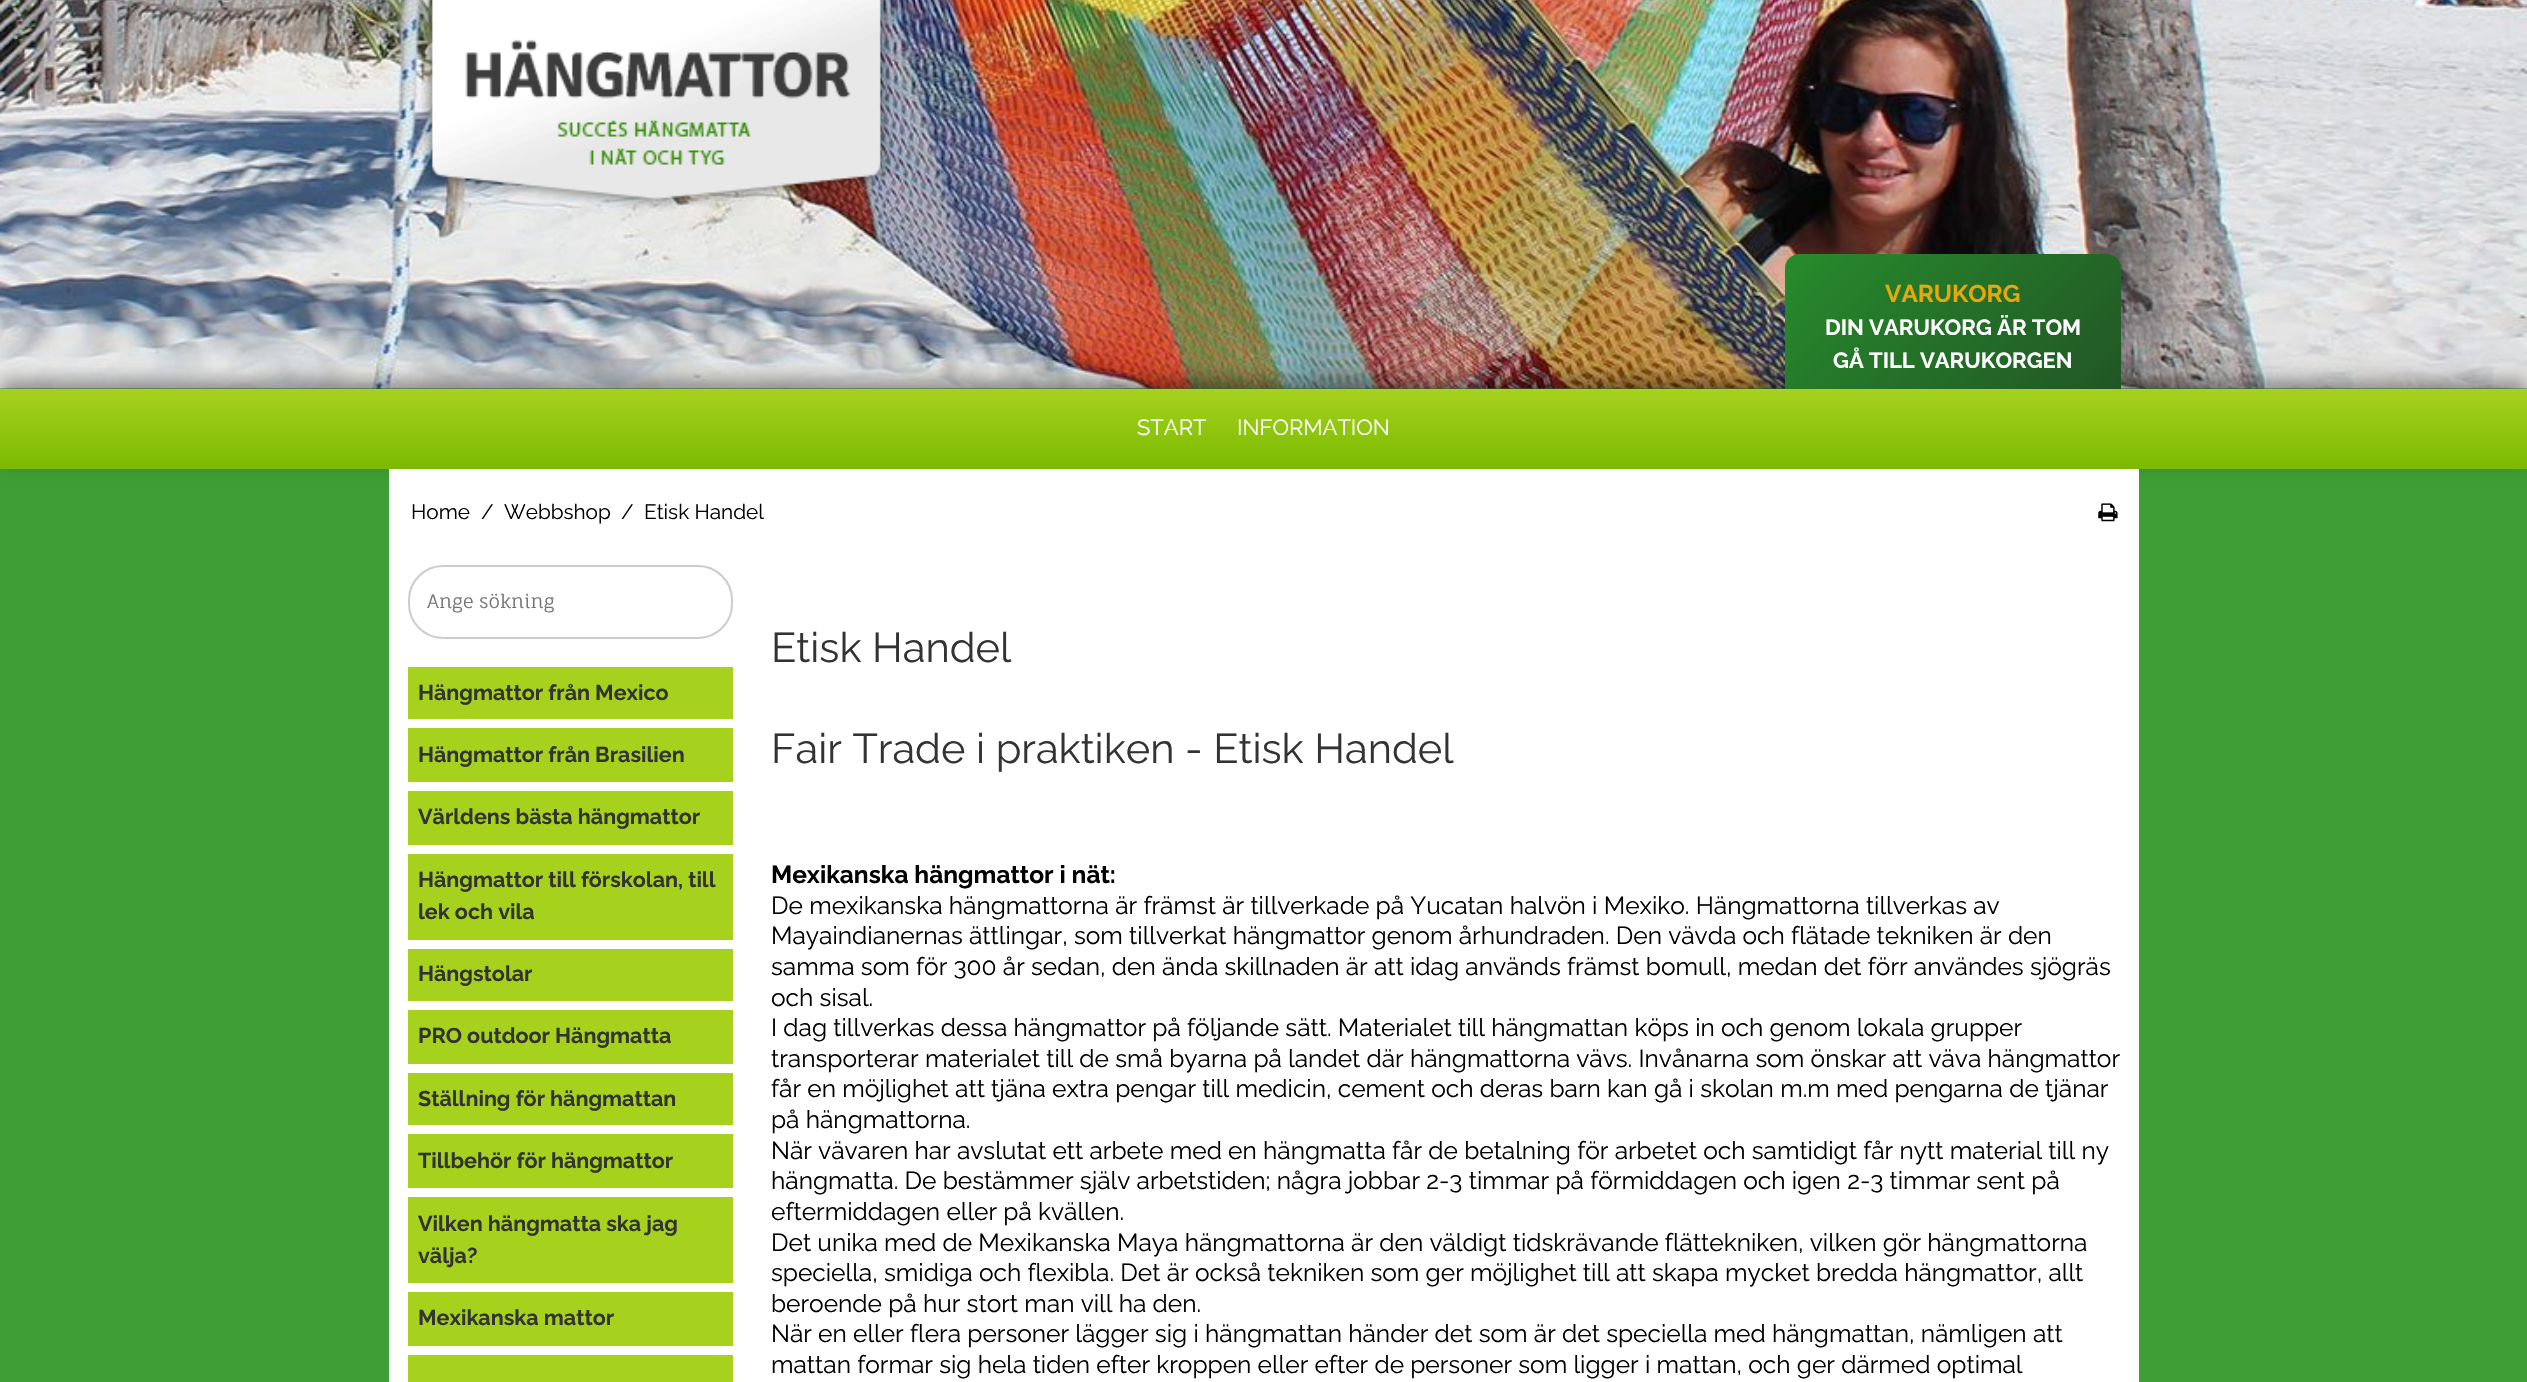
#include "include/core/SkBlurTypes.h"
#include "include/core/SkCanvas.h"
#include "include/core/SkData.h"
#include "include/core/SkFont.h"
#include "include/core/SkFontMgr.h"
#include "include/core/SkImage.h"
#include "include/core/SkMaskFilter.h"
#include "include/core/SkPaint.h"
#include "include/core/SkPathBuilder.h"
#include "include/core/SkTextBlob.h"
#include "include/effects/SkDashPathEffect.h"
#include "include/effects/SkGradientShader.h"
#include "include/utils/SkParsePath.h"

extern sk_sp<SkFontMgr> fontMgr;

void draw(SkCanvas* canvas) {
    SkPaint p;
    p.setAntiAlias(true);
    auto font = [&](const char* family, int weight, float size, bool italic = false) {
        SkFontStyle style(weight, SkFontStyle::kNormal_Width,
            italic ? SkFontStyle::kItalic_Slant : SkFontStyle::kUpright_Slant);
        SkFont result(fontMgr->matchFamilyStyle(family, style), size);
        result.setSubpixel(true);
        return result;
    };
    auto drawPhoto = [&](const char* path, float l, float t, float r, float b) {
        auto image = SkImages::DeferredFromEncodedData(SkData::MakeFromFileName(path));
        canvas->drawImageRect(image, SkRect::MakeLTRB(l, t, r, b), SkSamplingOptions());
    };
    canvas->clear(0xFF3F9E36);
    drawPhoto("media/1.png", 0, 0, 2527, 389);
    drawPhoto("media/2.png", 421, 0, 892, 210);
    p.setColor(0x66000000);
    p.setMaskFilter(SkMaskFilter::MakeBlur(kNormal_SkBlurStyle, 9));
    canvas->drawRect(SkRect::MakeLTRB(0, 380, 2527, 460), p);
    p.setMaskFilter(nullptr);
    {
        const SkColor colors[] = {0xFF278B2C, 0xFF215625};
        const float stops[] = {0, 1};
        const SkPoint ends[] = {{1835, 203}, {2071, 439}};
        p.setShader(SkGradientShader::MakeLinear(ends, colors, stops, 2, SkTileMode::kClamp));
        p.setAlpha(255);
    }
    canvas->drawPath(SkPathBuilder().moveTo(1799, 254).lineTo(2107, 254).cubicTo(2114.5f, 254, 2121, 260.5f, 2121, 268).lineTo(2121, 389).lineTo(1785, 389).lineTo(1785, 268).cubicTo(1785, 260.5f, 1791.5f, 254, 1799, 254).close().detach(), p);
    auto font1 = font("Raleway", 700, 24.25f);
    p.setShader(nullptr);
    p.setColor(0xFFE7A80A);
    canvas->drawString("VARUKORG", 1885, 302, font1, p);
    auto font2 = font("Raleway", 700, 22);
    p.setColor(0xFFFFFFFF);
    canvas->drawString("DIN VARUKORG ÄR TOM", 1825, 335, font2, p);
    canvas->drawString("GÅ TILL VARUKORGEN", 1833, 368, font2, p);
    {
        const SkColor colors[] = {0xFFA7D21E, 0xFF7ABA00};
        const float stops[] = {0, 1};
        const SkPoint ends[] = {{1264, 388}, {1264, 469}};
        p.setShader(SkGradientShader::MakeLinear(ends, colors, stops, 2, SkTileMode::kClamp));
        p.setAlpha(255);
    }
    canvas->drawRect(SkRect::MakeLTRB(0, 389, 2527, 469), p);
    auto font3 = font("Raleway", 400, 22);
    p.setShader(nullptr);
    p.setColor(0xFFFFFFFF);
    canvas->drawString("START", 1137, 435, font3, p);
    canvas->drawString("INFORMATION", 1237, 435, font3, p);
    canvas->drawRect(SkRect::MakeLTRB(389, 469, 2139, 1382), p);
    auto font4 = font("Raleway", 400, 20.75f);
    p.setColor(0xFF000000);
    {
        const struct { const char* s; float x, y; } items[] = {
            {"Home", 411, 519},
            {"/", 481, 519},
            {"Webbshop", 504, 519},
            {"/", 621, 519},
            {"Etisk Handel", 644, 519},
        };
        for (auto [s, x, y] : items) {
            canvas->drawString(s, x, y, font4, p);
        }
    }
    drawPhoto("media/3.png", 2098, 503, 2118, 522);
    p.setStyle(SkPaint::kStroke_Style);
    p.setStrokeWidth(2);
    p.setColor(0xFFCCCCCC);
    canvas->drawRoundRect(SkRect::MakeLTRB(409, 566, 732, 638), 34, 34, p);
    auto font5 = font("Fauna One", 400, 18.5f);
    p.setStyle(SkPaint::kFill_Style);
    p.setColor(0xFF757575);
    canvas->drawString("Ange sökning", 427, 608, font5, p);
    p.setColor(0xFFA6D21E);
    canvas->drawRect(SkRect::MakeLTRB(408, 667, 733, 719), p);
    auto font6 = font("Raleway", 700, 21.5f);
    p.setColor(0xFF333333);
    canvas->drawString("Hängmattor från Mexico", 418, 700, font6, p);
    p.setColor(0xFFA6D21E);
    canvas->drawRect(SkRect::MakeLTRB(408, 728, 733, 782), p);
    p.setColor(0xFF333333);
    canvas->drawString("Hängmattor från Brasilien", 418, 762, font6, p);
    p.setColor(0xFFA6D21E);
    canvas->drawRect(SkRect::MakeLTRB(408, 791, 733, 845), p);
    p.setColor(0xFF333333);
    canvas->drawString("Världens bästa hängmattor", 418, 824, font6, p);
    p.setColor(0xFFA6D21E);
    canvas->drawRect(SkRect::MakeLTRB(408, 854, 733, 940), p);
    p.setColor(0xFF333333);
    canvas->drawString("Hängmattor till förskolan, till", 418, 887, font6, p);
    canvas->drawString("lek och vila", 418, 919, font6, p);
    p.setColor(0xFFA6D21E);
    canvas->drawRect(SkRect::MakeLTRB(408, 949, 733, 1001), p);
    p.setColor(0xFF333333);
    canvas->drawString("Hängstolar", 418, 981, font6, p);
    p.setColor(0xFFA6D21E);
    canvas->drawRect(SkRect::MakeLTRB(408, 1010, 733, 1064), p);
    p.setColor(0xFF333333);
    canvas->drawString("PRO outdoor Hängmatta", 418, 1043, font6, p);
    p.setColor(0xFFA6D21E);
    canvas->drawRect(SkRect::MakeLTRB(408, 1073, 733, 1125), p);
    p.setColor(0xFF333333);
    canvas->drawString("Ställning för hängmattan", 418, 1106, font6, p);
    p.setColor(0xFFA6D21E);
    canvas->drawRect(SkRect::MakeLTRB(408, 1134, 733, 1188), p);
    p.setColor(0xFF333333);
    canvas->drawString("Tillbehör för hängmattor", 418, 1168, font6, p);
    p.setColor(0xFFA6D21E);
    canvas->drawRect(SkRect::MakeLTRB(408, 1197, 733, 1283), p);
    p.setColor(0xFF333333);
    canvas->drawString("Vilken hängmatta ska jag", 418, 1231, font6, p);
    canvas->drawString("välja?", 418, 1263, font6, p);
    p.setColor(0xFFA6D21E);
    canvas->drawRect(SkRect::MakeLTRB(408, 1292, 733, 1346), p);
    p.setColor(0xFF333333);
    canvas->drawString("Mexikanska mattor", 418, 1325, font6, p);
    p.setColor(0xFFA6D21E);
    canvas->drawRect(SkRect::MakeLTRB(408, 1355, 733, 1382), p);
    auto font7 = font("Raleway", 400, 41.6f);
    p.setColor(0xFF333333);
    canvas->drawString("Etisk Handel", 771, 662, font7, p);
    canvas->drawString("Fair Trade i praktiken - Etisk Handel", 771, 763, font7, p);
    auto font8 = font("Raleway", 700, 24.5f);
    p.setColor(0xFF000000);
    canvas->drawString("Mexikanska hängmattor i nät:", 771, 883, font8, p);
    auto font9 = font("Raleway", 400, 24.5f);
    {
        const struct { const char* s; float x, y; } items[] = {
            {"De mexikanska hängmattorna är främst är tillverkade på Yucatan halvön i Mexiko. Hängmattorna tillverkas av", 771, 914},
            {"Mayaindianernas ättlingar, som tillverkat hängmattor genom århundraden. Den vävda och flätade tekniken är den", 771, 944},
            {"samma som för 300 år sedan, den ända skillnaden är att idag används främst bomull, medan det förr användes sjögräs", 771, 975},
            {"och sisal.", 771, 1006},
            {"I dag tillverkas dessa hängmattor på följande sätt. Materialet till hängmattan köps in och genom lokala grupper", 771, 1036},
            {"transporterar materialet till de små byarna på landet där hängmattorna vävs. Invånarna som önskar att väva hängmattor", 771, 1067},
            {"får en möjlighet att tjäna extra pengar till medicin, cement och deras barn kan gå i skolan m.m med pengarna de tjänar", 771, 1097},
            {"på hängmattorna.", 771, 1128},
            {"När vävaren har avslutat ett arbete med en hängmatta får de betalning för arbetet och samtidigt får nytt material till ny", 771, 1159},
            {"hängmatta. De bestämmer själv arbetstiden; några jobbar 2-3 timmar på förmiddagen och igen 2-3 timmar sent på", 771, 1189},
            {"eftermiddagen eller på kvällen.", 771, 1220},
            {"Det unika med de Mexikanska Maya hängmattorna är den väldigt tidskrävande flättekniken, vilken gör hängmattorna", 771, 1251},
            {"speciella, smidiga och flexibla. Det är också tekniken som ger möjlighet till att skapa mycket bredda hängmattor, allt", 771, 1281},
            {"beroende på hur stort man vill ha den.", 771, 1312},
            {"När en eller flera personer lägger sig i hängmattan händer det som är det speciella med hängmattan, nämligen att", 771, 1342},
            {"mattan formar sig hela tiden efter kroppen eller efter de personer som ligger i mattan, och ger därmed optimal", 771, 1373},
        };
        for (auto [s, x, y] : items) {
            canvas->drawString(s, x, y, font9, p);
        }
    }
}
